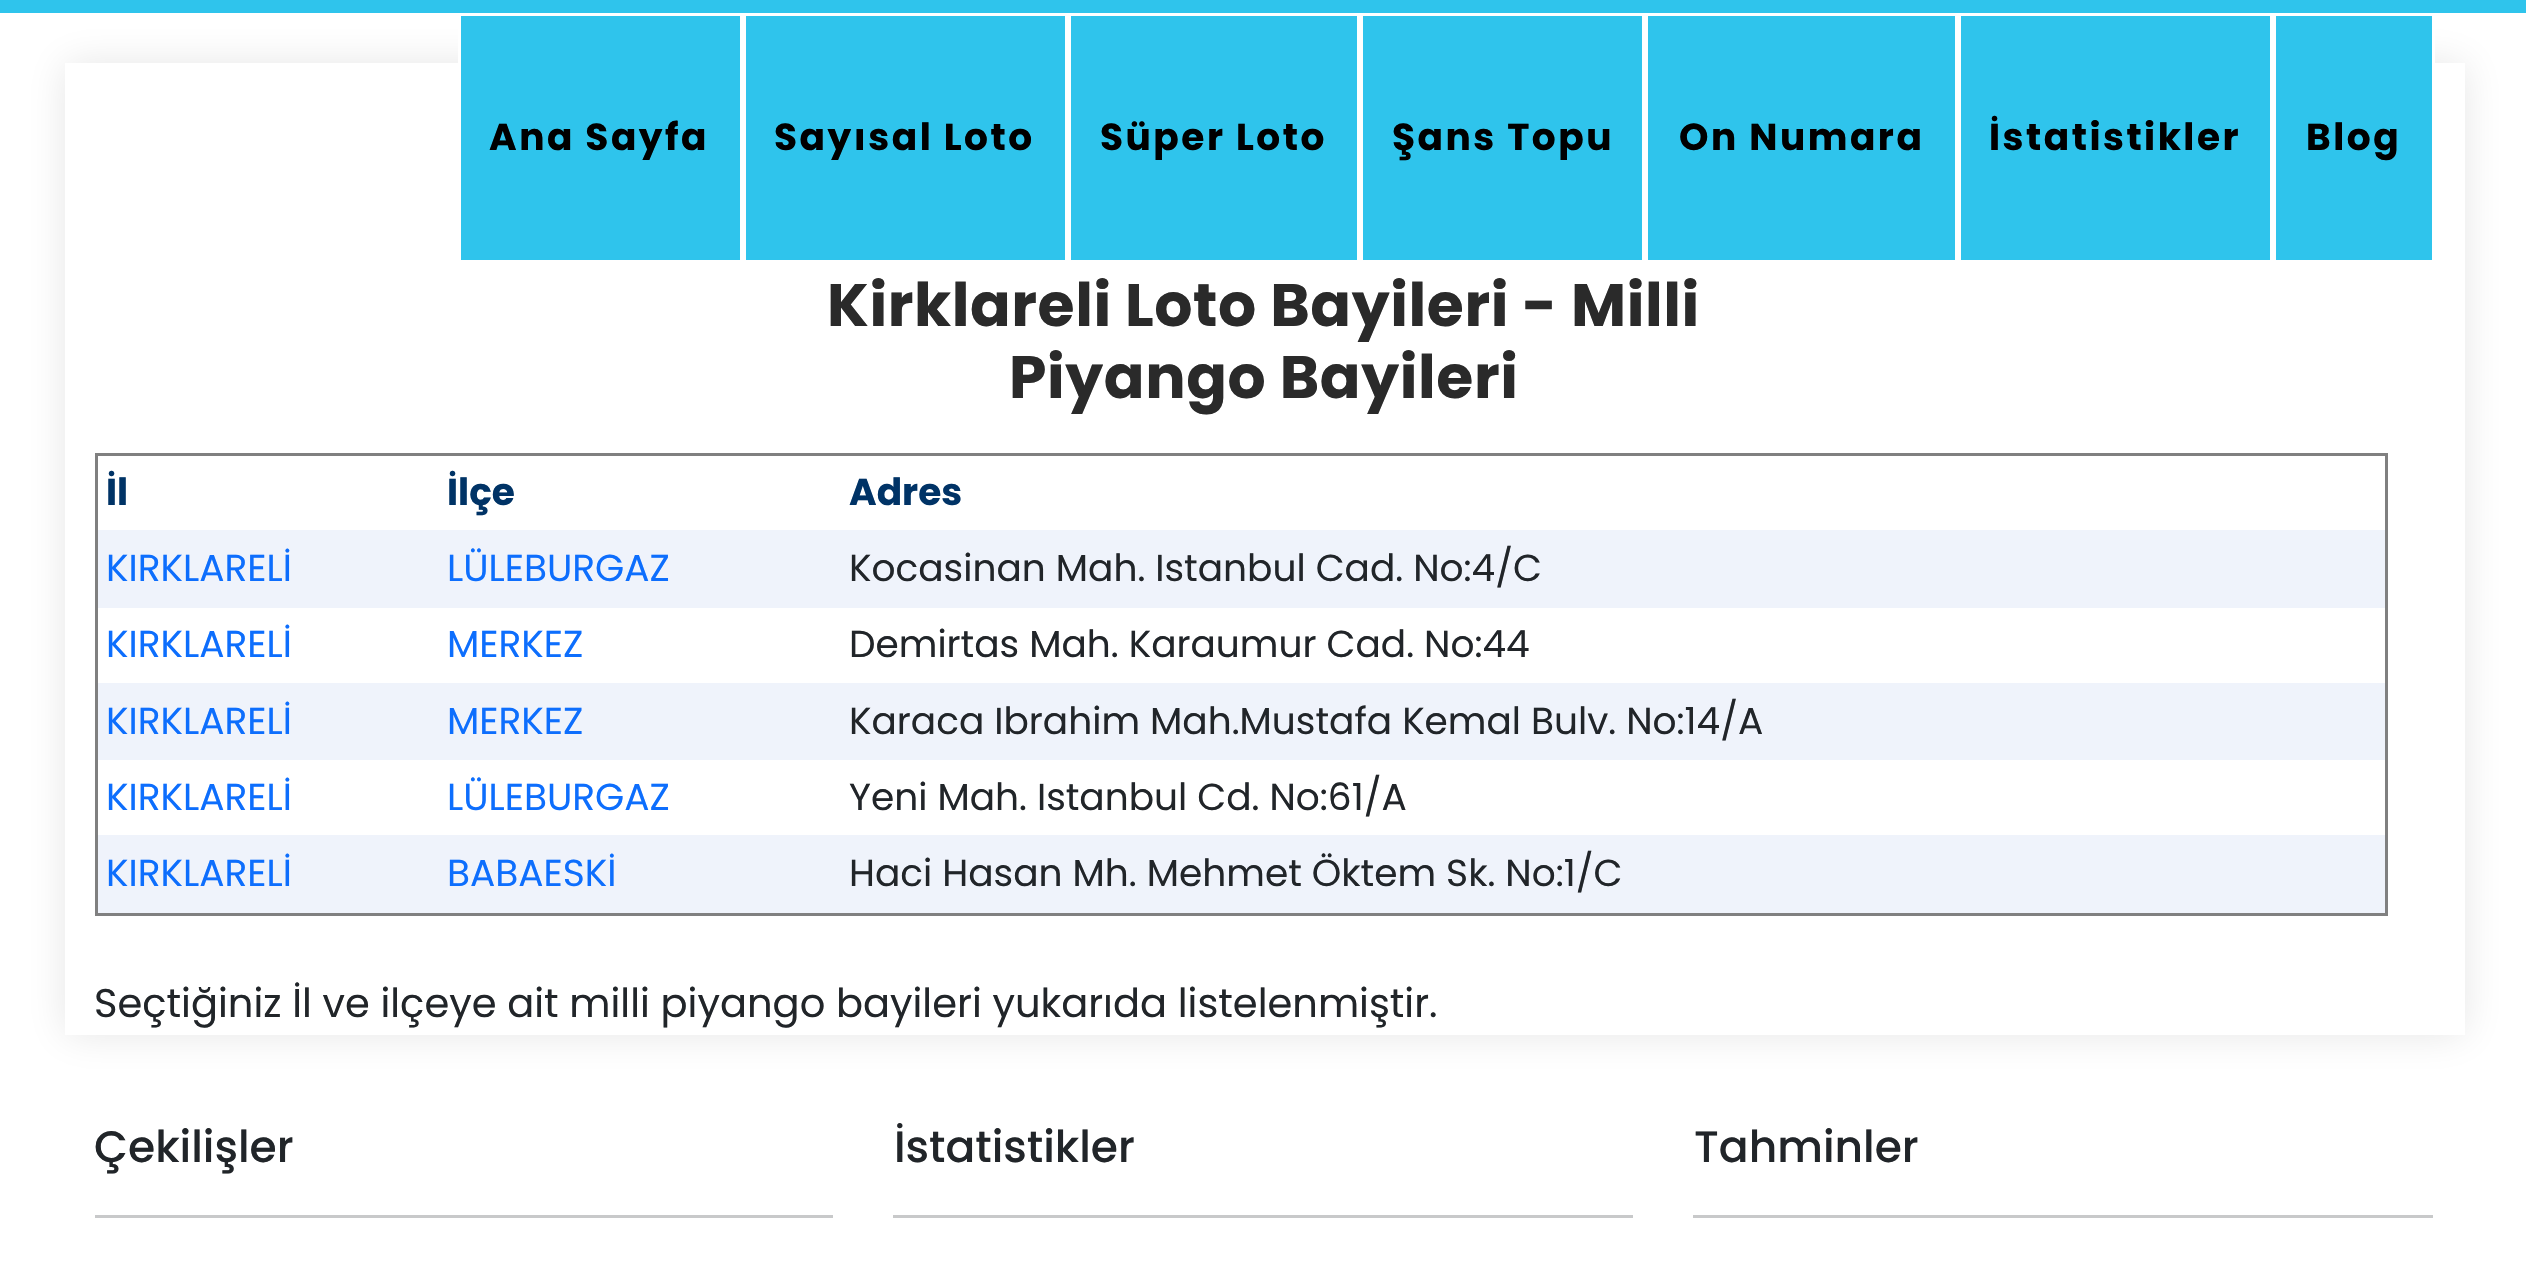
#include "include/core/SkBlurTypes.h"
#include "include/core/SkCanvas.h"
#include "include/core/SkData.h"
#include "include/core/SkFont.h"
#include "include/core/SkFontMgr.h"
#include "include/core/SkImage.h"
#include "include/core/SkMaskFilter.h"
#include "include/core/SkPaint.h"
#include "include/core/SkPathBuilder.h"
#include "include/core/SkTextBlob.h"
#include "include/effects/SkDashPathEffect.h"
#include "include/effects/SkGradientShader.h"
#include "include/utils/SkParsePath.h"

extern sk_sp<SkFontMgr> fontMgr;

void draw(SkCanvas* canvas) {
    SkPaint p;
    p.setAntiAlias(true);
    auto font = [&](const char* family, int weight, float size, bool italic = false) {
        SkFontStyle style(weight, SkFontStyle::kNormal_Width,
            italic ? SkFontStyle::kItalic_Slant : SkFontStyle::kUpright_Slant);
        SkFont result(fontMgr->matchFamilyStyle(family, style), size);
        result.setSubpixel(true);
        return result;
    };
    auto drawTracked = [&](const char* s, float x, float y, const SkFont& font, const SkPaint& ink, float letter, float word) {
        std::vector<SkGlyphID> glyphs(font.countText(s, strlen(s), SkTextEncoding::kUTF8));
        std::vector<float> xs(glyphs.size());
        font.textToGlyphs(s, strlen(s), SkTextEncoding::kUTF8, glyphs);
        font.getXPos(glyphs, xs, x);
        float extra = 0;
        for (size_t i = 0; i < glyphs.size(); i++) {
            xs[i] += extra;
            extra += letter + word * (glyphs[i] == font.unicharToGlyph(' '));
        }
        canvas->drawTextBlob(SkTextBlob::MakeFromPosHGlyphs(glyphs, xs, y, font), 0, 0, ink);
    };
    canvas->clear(0xFFFFFFFF);
    canvas->save();
    canvas->clipPath(SkPathBuilder(SkPathFillType::kEvenOdd).moveTo(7, 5).lineTo(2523, 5).lineTo(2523, 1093).lineTo(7, 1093).close().moveTo(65, 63).lineTo(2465, 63).lineTo(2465, 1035).lineTo(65, 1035).close().detach(), true);
    p.setColor(0x1A111010);
    p.setMaskFilter(SkMaskFilter::MakeBlur(kNormal_SkBlurStyle, 19));
    canvas->drawRect(SkRect::MakeLTRB(65, 63, 2465, 1035), p);
    p.setMaskFilter(nullptr);
    canvas->restore();
    p.setColor(0xFF2FC4EC);
    canvas->drawRect(SkRect::MakeLTRB(0, 0, 2526, 13), p);
    canvas->drawRect(SkRect::MakeLTRB(459.5f, 14.5f, 741.5f, 261.5f), p);
    p.setStyle(SkPaint::kStroke_Style);
    p.setStrokeWidth(3);
    p.setColor(0xFFFFFFFF);
    canvas->drawRect(SkRect::MakeLTRB(459.5f, 14.5f, 741.5f, 261.5f), p);
    auto font1 = font("Poppins", 700, 37.5f);
    p.setStyle(SkPaint::kFill_Style);
    p.setColor(0xFF000000);
    drawTracked("Ana Sayfa", 489, 150, font1, p, 2.5f, 0);
    p.setColor(0xFF2FC4EC);
    canvas->drawRect(SkRect::MakeLTRB(744.5f, 14.5f, 1066.5f, 261.5f), p);
    p.setStyle(SkPaint::kStroke_Style);
    p.setColor(0xFFFFFFFF);
    canvas->drawRect(SkRect::MakeLTRB(744.5f, 14.5f, 1066.5f, 261.5f), p);
    p.setStyle(SkPaint::kFill_Style);
    p.setColor(0xFF000000);
    drawTracked("Sayısal Loto", 774, 150, font1, p, 2.5f, 0);
    p.setColor(0xFF2FC4EC);
    canvas->drawRect(SkRect::MakeLTRB(1069.5f, 14.5f, 1358.5f, 261.5f), p);
    p.setStyle(SkPaint::kStroke_Style);
    p.setColor(0xFFFFFFFF);
    canvas->drawRect(SkRect::MakeLTRB(1069.5f, 14.5f, 1358.5f, 261.5f), p);
    p.setStyle(SkPaint::kFill_Style);
    p.setColor(0xFF000000);
    drawTracked("Süper Loto", 1100, 150, font1, p, 2.5f, 0);
    p.setColor(0xFF2FC4EC);
    canvas->drawRect(SkRect::MakeLTRB(1361.5f, 14.5f, 1643.5f, 261.5f), p);
    p.setStyle(SkPaint::kStroke_Style);
    p.setColor(0xFFFFFFFF);
    canvas->drawRect(SkRect::MakeLTRB(1361.5f, 14.5f, 1643.5f, 261.5f), p);
    p.setStyle(SkPaint::kFill_Style);
    p.setColor(0xFF000000);
    drawTracked("Şans Topu", 1392, 150, font1, p, 2.5f, 0);
    p.setColor(0xFF2FC4EC);
    canvas->drawRect(SkRect::MakeLTRB(1646.5f, 14.5f, 1956.5f, 261.5f), p);
    p.setStyle(SkPaint::kStroke_Style);
    p.setColor(0xFFFFFFFF);
    canvas->drawRect(SkRect::MakeLTRB(1646.5f, 14.5f, 1956.5f, 261.5f), p);
    p.setStyle(SkPaint::kFill_Style);
    p.setColor(0xFF000000);
    drawTracked("On Numara", 1679, 150, font1, p, 2.5f, 0);
    p.setColor(0xFF2FC4EC);
    canvas->drawRect(SkRect::MakeLTRB(1959.5f, 14.5f, 2271.5f, 261.5f), p);
    p.setStyle(SkPaint::kStroke_Style);
    p.setColor(0xFFFFFFFF);
    canvas->drawRect(SkRect::MakeLTRB(1959.5f, 14.5f, 2271.5f, 261.5f), p);
    p.setStyle(SkPaint::kFill_Style);
    p.setColor(0xFF000000);
    drawTracked("İstatistikler", 1989, 150, font1, p, 2.5f, 0);
    p.setColor(0xFF2FC4EC);
    canvas->drawRect(SkRect::MakeLTRB(2274.5f, 14.5f, 2433.5f, 261.5f), p);
    p.setStyle(SkPaint::kStroke_Style);
    p.setColor(0xFFFFFFFF);
    canvas->drawRect(SkRect::MakeLTRB(2274.5f, 14.5f, 2433.5f, 261.5f), p);
    p.setStyle(SkPaint::kFill_Style);
    p.setColor(0xFF000000);
    drawTracked("Blog", 2306, 150, font1, p, 2.5f, 0);
    auto font2 = font("Poppins", 700, 60);
    p.setColor(0xFF2A2A2A);
    drawTracked("Kirklareli Loto Bayileri - Milli", 827, 326, font2, p, 0.6f, 0);
    drawTracked("Piyango Bayileri", 1009, 398, font2, p, 0.6f, 0);
    {
        const struct { float l, t, r, b; SkColor color; } items[] = {
            {95, 453, 2388, 456, 0xFF808080},
            {2385, 453, 2388, 915, 0xFF808080},
            {95, 913, 2388, 916, 0xFF808080},
            {95, 453, 98, 915, 0xFF808080},
        };
        for (auto [l, t, r, b, color] : items) {
            p.setColor(color);
            canvas->drawRect(SkRect::MakeLTRB(l, t, r, b), p);
        }
    }
    p.setColor(0xFF003366);
    {
        const struct { const char* s; float x, y; } items[] = {
            {"İl", 106, 505},
            {"İlçe", 447, 505},
            {"Adres", 849, 505},
        };
        for (auto [s, x, y] : items) {
            canvas->drawString(s, x, y, font1, p);
        }
    }
    p.setColor(0xFFEFF3FB);
    canvas->drawRect(SkRect::MakeLTRB(98, 530, 2385, 608), p);
    auto font3 = font("Poppins", 400, 37.5f);
    p.setColor(0xFF0D6EFD);
    canvas->drawString("KIRKLARELİ", 106, 581, font3, p);
    canvas->drawString("LÜLEBURGAZ", 447, 581, font3, p);
    p.setColor(0xFF212529);
    canvas->drawString("Kocasinan Mah. Istanbul Cad. No:4/C", 849, 581, font3, p);
    p.setColor(0xFF0D6EFD);
    canvas->drawString("KIRKLARELİ", 106, 657, font3, p);
    canvas->drawString("MERKEZ", 447, 657, font3, p);
    p.setColor(0xFF212529);
    canvas->drawString("Demirtas Mah. Karaumur Cad. No:44", 849, 657, font3, p);
    p.setColor(0xFFEFF3FB);
    canvas->drawRect(SkRect::MakeLTRB(98, 683, 2385, 760), p);
    p.setColor(0xFF0D6EFD);
    canvas->drawString("KIRKLARELİ", 106, 734, font3, p);
    canvas->drawString("MERKEZ", 447, 734, font3, p);
    p.setColor(0xFF212529);
    canvas->drawString("Karaca Ibrahim Mah.Mustafa Kemal Bulv. No:14/A", 849, 734, font3, p);
    p.setColor(0xFF0D6EFD);
    canvas->drawString("KIRKLARELİ", 106, 810, font3, p);
    canvas->drawString("LÜLEBURGAZ", 447, 810, font3, p);
    p.setColor(0xFF212529);
    canvas->drawString("Yeni Mah. Istanbul Cd. No:61/A", 849, 810, font3, p);
    p.setColor(0xFFEFF3FB);
    canvas->drawRect(SkRect::MakeLTRB(98, 835, 2385, 913), p);
    p.setColor(0xFF0D6EFD);
    canvas->drawString("KIRKLARELİ", 106, 886, font3, p);
    canvas->drawString("BABAESKİ", 447, 886, font3, p);
    p.setColor(0xFF212529);
    canvas->drawString("Haci Hasan Mh. Mehmet Öktem Sk. No:1/C", 849, 886, font3, p);
    auto font4 = font("Poppins", 400, 40);
    canvas->drawString("Seçtiğiniz İl ve ilçeye ait milli piyango bayileri yukarıda listelenmiştir.", 94, 1017, font4, p);
    auto font5 = font("Poppins", 500, 44);
    canvas->drawString("Çekilişler", 94, 1162, font5, p);
    p.setColor(0xFFC8C9CA);
    canvas->drawRect(SkRect::MakeLTRB(95, 1215, 833, 1218), p);
    p.setColor(0xFF212529);
    canvas->drawString("İstatistikler", 894, 1162, font5, p);
    p.setColor(0xFFC8C9CA);
    canvas->drawRect(SkRect::MakeLTRB(893, 1215, 1633, 1218), p);
    p.setColor(0xFF212529);
    canvas->drawString("Tahminler", 1694, 1162, font5, p);
    p.setColor(0xFFC8C9CA);
    canvas->drawRect(SkRect::MakeLTRB(1693, 1215, 2433, 1218), p);
}
